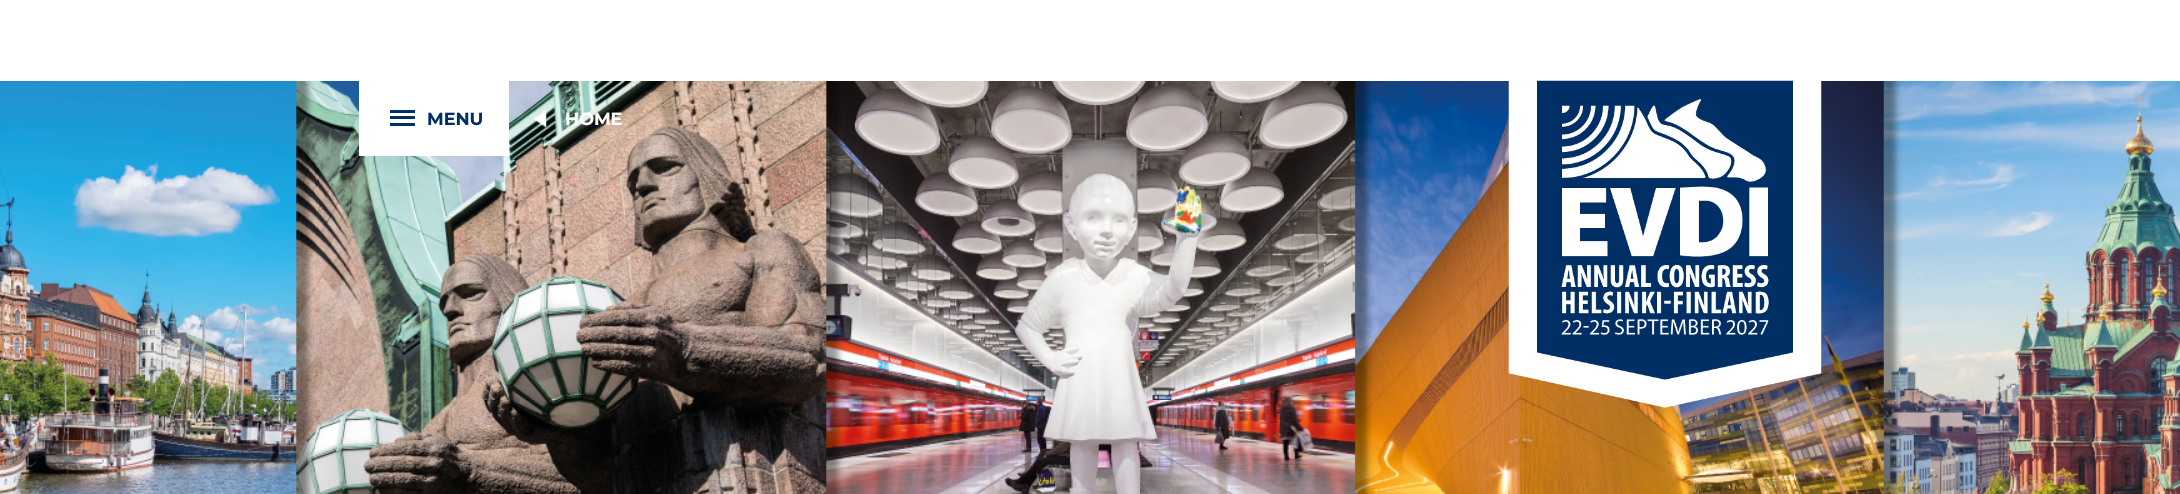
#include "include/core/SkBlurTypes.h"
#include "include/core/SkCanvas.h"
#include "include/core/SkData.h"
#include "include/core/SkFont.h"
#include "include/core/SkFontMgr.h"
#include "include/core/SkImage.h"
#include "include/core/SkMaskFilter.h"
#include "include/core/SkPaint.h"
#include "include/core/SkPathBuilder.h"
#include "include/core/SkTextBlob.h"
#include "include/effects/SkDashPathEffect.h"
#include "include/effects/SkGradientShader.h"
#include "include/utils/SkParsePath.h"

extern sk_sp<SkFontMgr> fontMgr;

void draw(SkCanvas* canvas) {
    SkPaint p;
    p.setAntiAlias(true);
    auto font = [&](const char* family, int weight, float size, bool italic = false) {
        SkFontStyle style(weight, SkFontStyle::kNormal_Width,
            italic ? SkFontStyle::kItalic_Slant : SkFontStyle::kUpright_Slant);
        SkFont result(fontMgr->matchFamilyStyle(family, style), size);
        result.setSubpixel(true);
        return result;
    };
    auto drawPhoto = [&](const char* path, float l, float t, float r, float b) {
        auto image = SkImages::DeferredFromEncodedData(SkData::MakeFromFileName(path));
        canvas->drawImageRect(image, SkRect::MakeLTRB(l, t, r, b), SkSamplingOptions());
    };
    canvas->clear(0xFFFFFFFF);
    drawPhoto("media/1.png", 0, 81, 2180, 494);
    {
        const struct { float l, t, r, b; SkColor color; } items[] = {
            {359, 81, 509, 156, 0xFFFFFFFF},
            {390, 116, 415, 119, 0xFF002F66},
            {390, 110, 415, 113, 0xFF002F66},
            {390, 123, 415, 126, 0xFF002F66},
        };
        for (auto [l, t, r, b, color] : items) {
            p.setColor(color);
            canvas->drawRect(SkRect::MakeLTRB(l, t, r, b), p);
        }
    }
    auto font1 = font("Montserrat", 700, 17.5f);
    canvas->drawString("MENU", 427, 125, font1, p);
    drawPhoto("media/2.png", 533, 110, 547, 128);
    p.setColor(0xFFFFFFFF);
    canvas->drawString("HOME", 565, 125, font1, p);
    drawPhoto("media/3.png", 1508, 80, 1822, 408);
}
